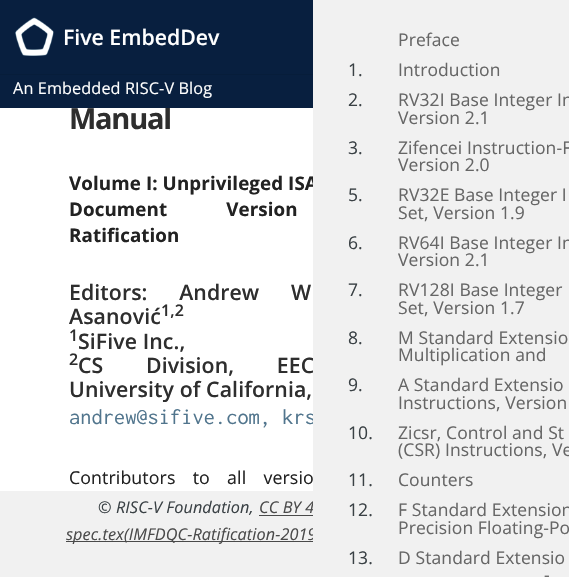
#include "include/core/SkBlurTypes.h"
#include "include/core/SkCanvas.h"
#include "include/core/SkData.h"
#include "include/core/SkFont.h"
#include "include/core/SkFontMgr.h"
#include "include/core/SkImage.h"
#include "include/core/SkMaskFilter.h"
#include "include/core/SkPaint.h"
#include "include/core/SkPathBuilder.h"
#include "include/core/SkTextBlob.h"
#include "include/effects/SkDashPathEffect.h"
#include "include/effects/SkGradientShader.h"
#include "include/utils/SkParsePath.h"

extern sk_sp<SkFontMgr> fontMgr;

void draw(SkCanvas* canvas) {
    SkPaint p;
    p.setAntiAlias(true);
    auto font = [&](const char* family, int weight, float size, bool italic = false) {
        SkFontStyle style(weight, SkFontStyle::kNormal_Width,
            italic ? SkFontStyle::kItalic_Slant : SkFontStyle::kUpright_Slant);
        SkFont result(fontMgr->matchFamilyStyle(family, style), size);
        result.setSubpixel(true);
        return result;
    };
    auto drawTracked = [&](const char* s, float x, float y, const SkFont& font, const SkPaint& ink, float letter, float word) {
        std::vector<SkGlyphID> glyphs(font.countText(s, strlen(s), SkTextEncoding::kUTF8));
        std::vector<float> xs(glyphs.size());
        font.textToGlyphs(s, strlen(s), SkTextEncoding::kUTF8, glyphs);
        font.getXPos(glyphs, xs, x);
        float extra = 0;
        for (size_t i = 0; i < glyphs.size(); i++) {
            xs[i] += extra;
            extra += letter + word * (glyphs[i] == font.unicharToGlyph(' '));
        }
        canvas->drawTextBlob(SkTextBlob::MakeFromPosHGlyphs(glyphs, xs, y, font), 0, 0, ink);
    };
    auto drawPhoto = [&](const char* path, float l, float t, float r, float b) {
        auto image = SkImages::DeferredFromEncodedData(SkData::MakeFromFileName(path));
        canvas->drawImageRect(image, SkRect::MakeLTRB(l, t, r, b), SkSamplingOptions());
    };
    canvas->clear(0xFFFFFFFF);
    p.setColor(0xFF081F3F);
    canvas->drawRect(SkRect::MakeLTRB(0, 0, 313, 74), p);
    p.setColor(0xFF071D3A);
    canvas->drawRect(SkRect::MakeLTRB(0, 74, 313, 75), p);
    drawPhoto("media/1.png", 15, 17, 54, 56);
    auto font1 = font("Open Sans", 600, 21.25f);
    p.setColor(0xFFFFFFFF);
    canvas->drawString("Five EmbedDev", 63, 45, font1, p);
    auto font2 = font("Open Sans", 700, 29);
    p.setColor(0xFF2E2E2E);
    drawTracked("Manual", 69, 129, font2, p, -1.25f, 0);
    p.setColor(0xFF081F3F);
    canvas->drawRect(SkRect::MakeLTRB(0, 75, 313, 108), p);
    auto font3 = font("Open Sans", 400, 16.25f);
    p.setColor(0xFFFFFFFF);
    drawTracked("An Embedded RISC-V Blog", 13, 94, font3, p, 0.1f, 0);
    auto font4 = font("Open Sans", 700, 18.75f);
    p.setColor(0xFF222222);
    drawTracked("Volume I: Unprivileged ISA", 69, 190, font4, p, 0.1f, 0);
    p.setColor(0xFF2E2E2E);
    drawTracked("CS Division, EEC", 78, 373, font1, p, 0.1f, 37);
    auto font5 = font("Inconsolata", 400, 22.25f);
    p.setColor(0xFF51758D);
    drawTracked("andrew@sifive.com, krs", 69, 424, font5, p, 0.1f, 0);
    auto font6 = font("Open Sans", 400, 17.75f);
    p.setColor(0xFF222222);
    drawTracked("Contributors to all versio", 69, 484, font6, p, 0.1f, 12.5f);
    p.setColor(0xFFF1F1F1);
    canvas->drawRect(SkRect::MakeLTRB(0, 491, 313, 577), p);
    auto font7 = font("Open Sans", 400, 16.25f, true);
    p.setColor(0xFF4A4A4A);
    drawTracked("CC BY 4", 259, 513, font7, p, 0.1f, 0);
    canvas->drawRect(SkRect::MakeLTRB(66, 541, 313, 542), p);
    drawTracked("spec.tex(IMFDQC-Ratification-2019", 66, 540, font7, p, 0.1f, 0);
    p.setColor(0xFFF1F1F1);
    canvas->drawRect(SkRect::MakeLTRB(313, 0, 569, 577), p);
    auto font8 = font("Open Sans", 400, 17.5f);
    p.setColor(0xFF666666);
    drawTracked("Preface", 398, 46, font8, p, 0.1f, 0);
    p.setColor(0xFF3A4145);
    drawTracked("1.", 348, 76, font8, p, 0.1f, 0);
    p.setColor(0xFF666666);
    drawTracked("Introduction", 398, 76, font8, p, 0.1f, 0);
    p.setColor(0xFF3A4145);
    drawTracked("2.", 348, 106, font8, p, 0.1f, 0);
    p.setColor(0xFF666666);
    drawTracked("RV32I Base Integer In", 398, 106, font8, p, 0.1f, 0);
    drawTracked("Version 2.1", 398, 124, font8, p, 0.1f, 0);
    p.setColor(0xFF3A4145);
    drawTracked("3.", 348, 154, font8, p, 0.1f, 0);
    p.setColor(0xFF666666);
    drawTracked("Zifencei Instruction-F", 398, 154, font8, p, 0.1f, 0);
    drawTracked("Version 2.0", 398, 171, font8, p, 0.1f, 0);
    p.setColor(0xFF3A4145);
    drawTracked("5.", 348, 201, font8, p, 0.1f, 0);
    p.setColor(0xFF666666);
    drawTracked("RV32E Base Integer I", 398, 201, font8, p, 0.1f, 0);
    drawTracked("Set, Version 1.9", 398, 219, font8, p, 0.1f, 0);
    p.setColor(0xFF3A4145);
    drawTracked("6.", 348, 249, font8, p, 0.1f, 0);
    p.setColor(0xFF666666);
    drawTracked("RV64I Base Integer In", 398, 249, font8, p, 0.1f, 0);
    drawTracked("Version 2.1", 398, 266, font8, p, 0.1f, 0);
    p.setColor(0xFF3A4145);
    drawTracked("7.", 348, 296, font8, p, 0.1f, 0);
    p.setColor(0xFF666666);
    drawTracked("RV128I Base Integer", 398, 296, font8, p, 0.1f, 0);
    drawTracked("Set, Version 1.7", 398, 314, font8, p, 0.1f, 0);
    p.setColor(0xFF3A4145);
    drawTracked("8.", 348, 344, font8, p, 0.1f, 0);
    p.setColor(0xFF666666);
    drawTracked("M Standard Extensio", 398, 344, font8, p, 0.1f, 0);
    drawTracked("Multiplication and", 398, 361, font8, p, 0.1f, 0);
    p.setColor(0xFF3A4145);
    drawTracked("9.", 348, 391, font8, p, 0.1f, 0);
    p.setColor(0xFF666666);
    drawTracked("A Standard Extensio", 398, 391, font8, p, 0.1f, 0);
    drawTracked("Instructions, Version", 398, 409, font8, p, 0.1f, 0);
    p.setColor(0xFF3A4145);
    drawTracked("10.", 348, 439, font8, p, 0.1f, 0);
    p.setColor(0xFF666666);
    drawTracked("Zicsr, Control and St", 398, 439, font8, p, 0.1f, 0);
    drawTracked("(CSR) Instructions, Ve", 398, 456, font8, p, 0.1f, 0);
    p.setColor(0xFF3A4145);
    drawTracked("11.", 348, 486, font8, p, 0.1f, 0);
    p.setColor(0xFF666666);
    drawTracked("Counters", 398, 486, font8, p, 0.1f, 0);
    p.setColor(0xFF3A4145);
    drawTracked("12.", 348, 516, font8, p, 0.1f, 0);
    p.setColor(0xFF666666);
    drawTracked("F Standard Extension", 398, 516, font8, p, 0.1f, 0);
    drawTracked("Precision Floating-Po", 398, 534, font8, p, 0.1f, 0);
    p.setColor(0xFF3A4145);
    drawTracked("13.", 348, 564, font8, p, 0.1f, 0);
    p.setColor(0xFF666666);
    drawTracked("D Standard Extensio", 398, 564, font8, p, 0.1f, 0);
    drawTracked("-", 544, 581, font8, p, 0.1f, 0);
    p.setColor(0xFF222222);
    drawTracked("Document Version", 69, 216, font4, p, 0.1f, 54);
    drawTracked("Ratification", 69, 242, font4, p, 0.1f, 0);
    p.setColor(0xFF2E2E2E);
    drawTracked("Editors: Andrew W", 69, 300, font1, p, 0.1f, 26);
    drawTracked("Asanović", 69, 324, font1, p, 0.1f, 0);
    auto font9 = font("Open Sans", 600, 16);
    drawTracked("1, 2", 161, 316, font9, p, 0.1f, 0);
    drawTracked("1", 69, 341, font9, p, 0.1f, 0);
    drawTracked("SiFive Inc.,", 78, 349, font1, p, 0.1f, 0);
    drawTracked("2", 69, 365, font9, p, 0.1f, 0);
    drawTracked("University of California,", 69, 397, font1, p, 0.1f, 0);
    p.setColor(0xFF3A4145);
    drawTracked("© RISC-V Foundation,", 98, 513, font7, p, 0.1f, 0);
    p.setColor(0xFF4A4A4A);
    canvas->drawRect(SkRect::MakeLTRB(259, 515, 313, 516), p);
}
